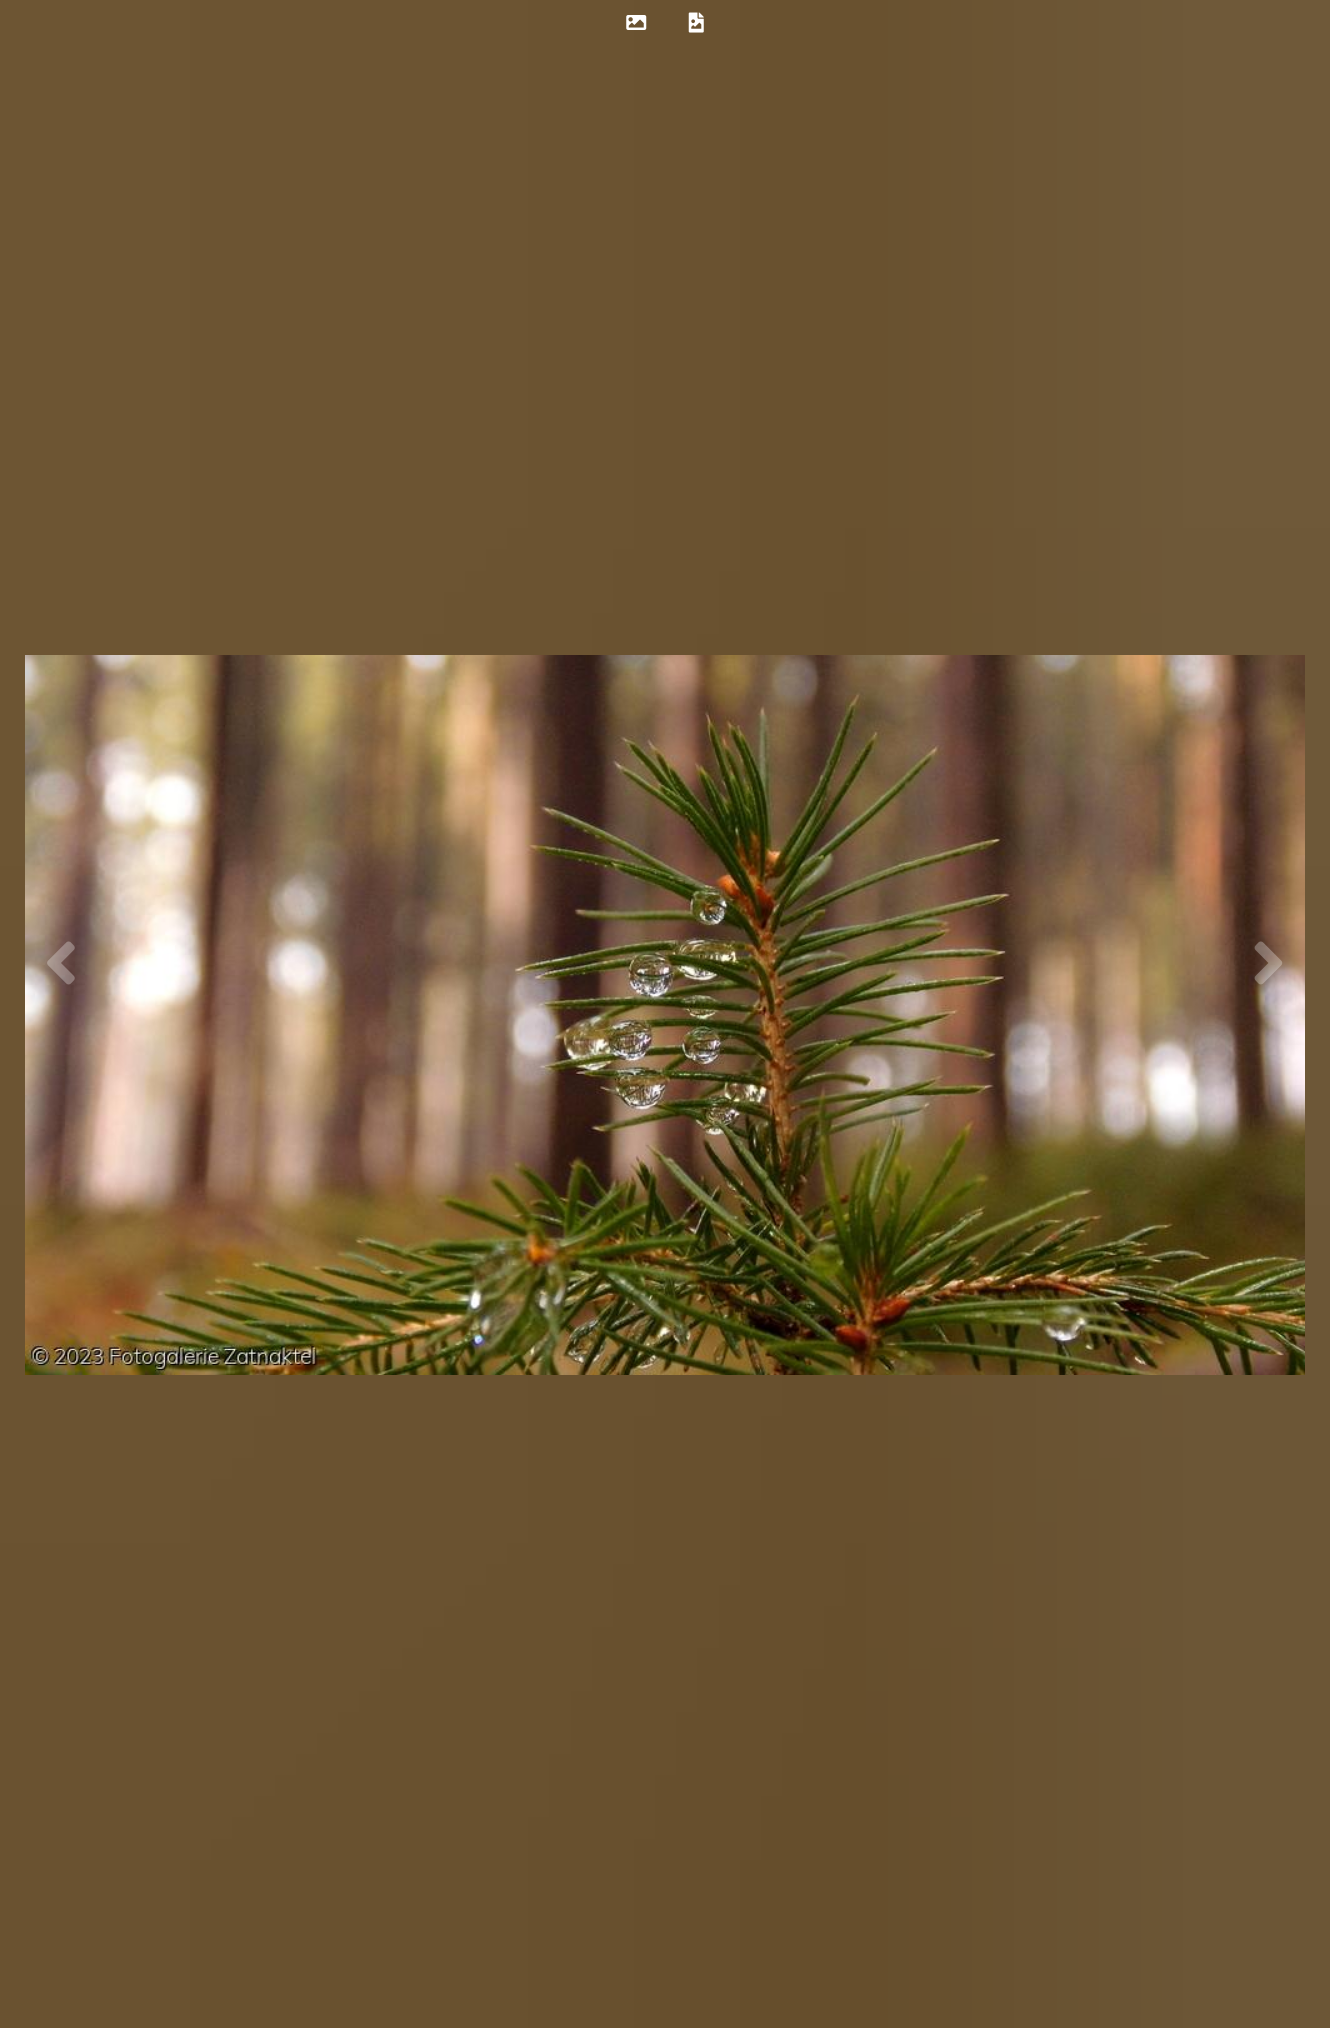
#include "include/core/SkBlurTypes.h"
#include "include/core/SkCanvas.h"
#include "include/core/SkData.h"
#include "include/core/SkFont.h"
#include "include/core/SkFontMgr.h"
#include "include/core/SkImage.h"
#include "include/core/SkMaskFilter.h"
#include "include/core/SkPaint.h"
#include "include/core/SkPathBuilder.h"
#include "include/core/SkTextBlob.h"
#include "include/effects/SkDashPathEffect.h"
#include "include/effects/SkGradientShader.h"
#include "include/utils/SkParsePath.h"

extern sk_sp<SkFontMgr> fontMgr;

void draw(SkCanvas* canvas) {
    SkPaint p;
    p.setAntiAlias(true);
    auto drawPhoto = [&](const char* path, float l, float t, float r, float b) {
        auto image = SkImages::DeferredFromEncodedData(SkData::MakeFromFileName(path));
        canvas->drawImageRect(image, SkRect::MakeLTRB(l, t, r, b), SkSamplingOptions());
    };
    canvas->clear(0xFFFFFFFF);
    drawPhoto("media/1.png", 0, 0, 1330, 2028);
    drawPhoto("media/2.png", 626, 15, 647, 30);
    drawPhoto("media/3.png", 688, 12, 704, 33);
    drawPhoto("media/4.png", 25, 655, 1305, 1375);
    drawPhoto("media/5.png", 47, 941, 75, 985);
    drawPhoto("media/6.png", 1254, 941, 1283, 985);
}
